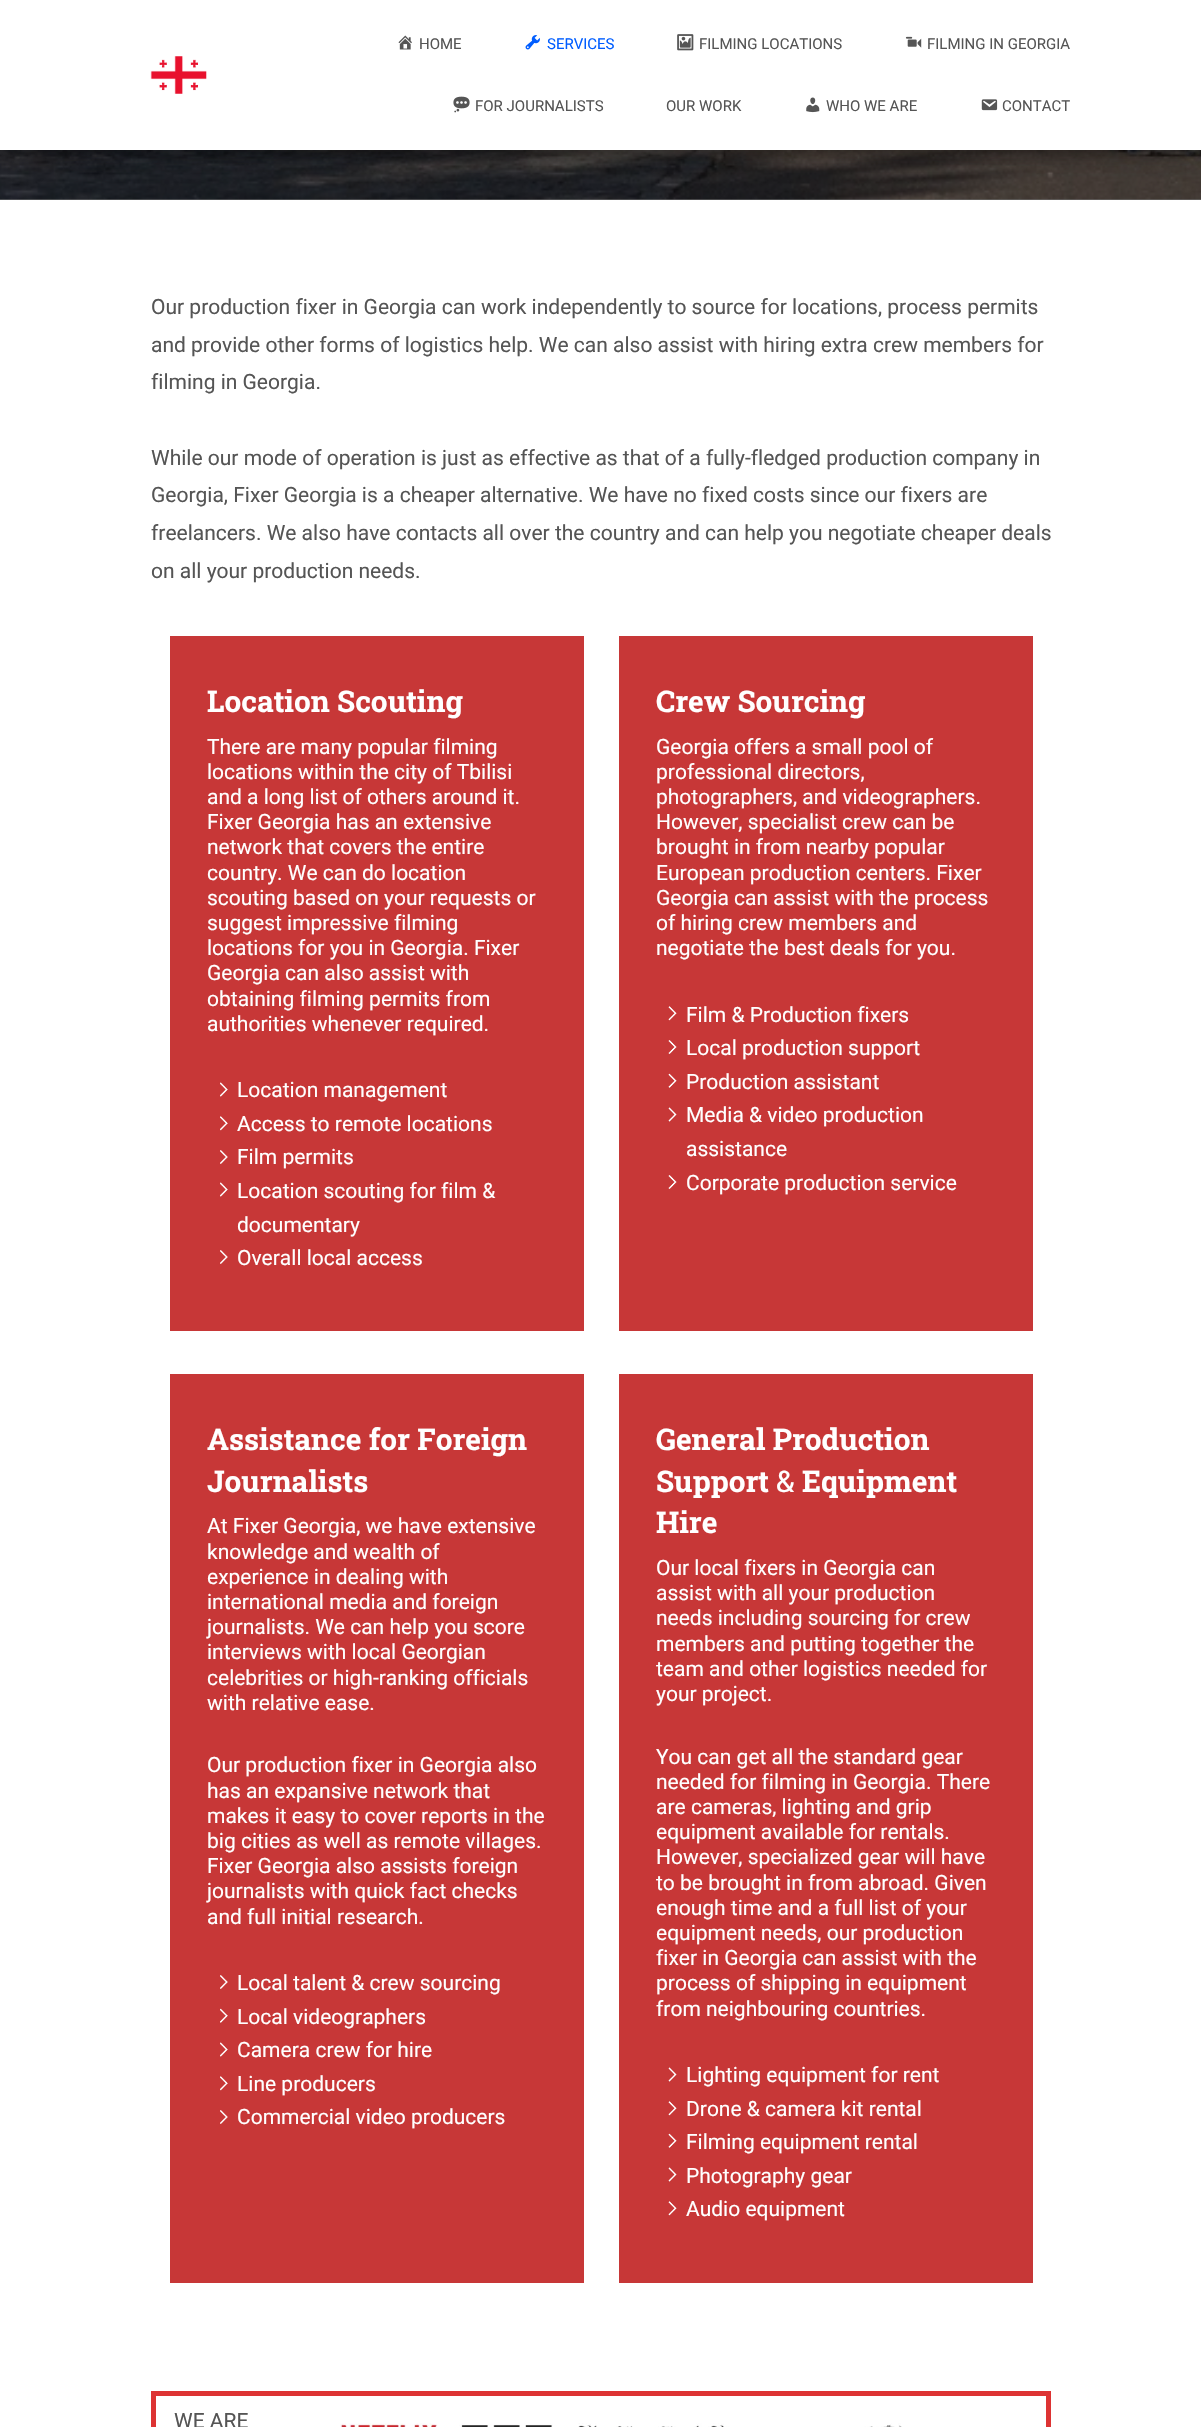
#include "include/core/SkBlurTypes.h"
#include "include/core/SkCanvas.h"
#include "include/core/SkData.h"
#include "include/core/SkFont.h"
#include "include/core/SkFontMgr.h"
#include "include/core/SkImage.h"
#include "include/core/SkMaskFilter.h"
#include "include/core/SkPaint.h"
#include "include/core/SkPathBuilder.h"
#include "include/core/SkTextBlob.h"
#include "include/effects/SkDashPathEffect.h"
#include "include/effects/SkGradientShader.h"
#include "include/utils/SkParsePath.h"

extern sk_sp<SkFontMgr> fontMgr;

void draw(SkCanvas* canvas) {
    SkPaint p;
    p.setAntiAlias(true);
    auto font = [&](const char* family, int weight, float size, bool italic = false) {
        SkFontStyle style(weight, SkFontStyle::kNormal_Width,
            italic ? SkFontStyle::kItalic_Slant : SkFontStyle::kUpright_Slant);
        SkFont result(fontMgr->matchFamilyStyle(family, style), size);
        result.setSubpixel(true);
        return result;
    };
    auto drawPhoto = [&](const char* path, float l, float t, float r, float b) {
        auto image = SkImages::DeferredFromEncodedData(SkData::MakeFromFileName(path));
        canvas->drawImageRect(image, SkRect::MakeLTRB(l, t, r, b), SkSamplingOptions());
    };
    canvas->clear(0xFF737373);
    drawPhoto("media/9.png", 0, 150, 1201, 200);
    p.setColor(0x33000000);
    p.setMaskFilter(SkMaskFilter::MakeBlur(kNormal_SkBlurStyle, 6));
    canvas->drawRect(SkRect::MakeLTRB(6, 16, 1195, 154), p);
    p.setMaskFilter(nullptr);
    p.setColor(0x1F000000);
    p.setMaskFilter(SkMaskFilter::MakeBlur(kNormal_SkBlurStyle, 12.5f));
    canvas->drawRect(SkRect::MakeLTRB(0, 4, 1201, 154), p);
    p.setMaskFilter(nullptr);
    p.setColor(0x6B000000);
    p.setMaskFilter(SkMaskFilter::MakeBlur(kNormal_SkBlurStyle, 12.5f));
    canvas->drawRect(SkRect::MakeLTRB(15, 28, 1186, 148), p);
    p.setMaskFilter(nullptr);
    p.setColor(0xFFFFFFFF);
    canvas->drawRect(SkRect::MakeLTRB(0, 0, 1201, 150), p);
    drawPhoto("media/1.png", 150, 56, 207, 94);
    drawPhoto("media/2.png", 398, 35, 412, 50);
    auto font1 = font("Roboto", 400, 15);
    p.setColor(0xFF555555);
    canvas->drawString("HOME", 419, 49, font1, p);
    drawPhoto("media/3.png", 525, 35, 540, 50);
    p.setColor(0xFF005DFF);
    canvas->drawString("SERVICES", 547, 49, font1, p);
    drawPhoto("media/4.png", 677, 34, 694, 51);
    p.setColor(0xFF555555);
    canvas->drawString("FILMING LOCATIONS", 699, 49, font1, p);
    drawPhoto("media/5.png", 905, 36, 922, 48);
    canvas->drawString("FILMING IN GEORGIA", 927, 49, font1, p);
    drawPhoto("media/6.png", 453, 96, 470, 113);
    canvas->drawString("FOR JOURNALISTS", 475, 111, font1, p);
    canvas->drawString("OUR WORK", 666, 111, font1, p);
    drawPhoto("media/7.png", 806, 97, 820, 113);
    canvas->drawString("WHO WE ARE", 826, 111, font1, p);
    drawPhoto("media/8.png", 981, 99, 998, 111);
    canvas->drawString("CONTACT", 1002, 111, font1, p);
    p.setColor(0xFFFFFFFF);
    canvas->drawRect(SkRect::MakeLTRB(0, 200, 1201, 2427), p);
    auto font2 = font("Roboto", 400, 21);
    p.setColor(0xFF555555);
    {
        const struct { const char* s; float x, y; } items[] = {
            {"Our production fixer in Georgia can work independently to source for locations, process permits", 151, 314},
            {"and provide other forms of logistics help. We can also assist with hiring extra crew members for", 151, 352},
            {"filming in Georgia.", 151, 389},
            {"While our mode of operation is just as effective as that of a fully-fledged production company in", 151, 465},
            {"Georgia, Fixer Georgia is a cheaper alternative. We have no fixed costs since our fixers are", 151, 502},
            {"freelancers. We also have contacts all over the country and can help you negotiate cheaper deals", 151, 540},
            {"on all your production needs.", 151, 578},
        };
        for (auto [s, x, y] : items) {
            canvas->drawString(s, x, y, font2, p);
        }
    }
    p.setColor(0xFFC73737);
    canvas->drawRect(SkRect::MakeLTRB(170, 636, 584, 1331), p);
    auto font3 = font("Roboto Slab", 700, 29.75f);
    p.setColor(0xFFFFFFFF);
    canvas->drawString("Location Scouting", 207, 712, font3, p);
    {
        const struct { const char* s; float x, y; } items[] = {
            {"There are many popular filming", 207, 754},
            {"locations within the city of Tbilisi", 207, 779},
            {"and a long list of others around it.", 207, 804},
            {"Fixer Georgia has an extensive", 207, 829},
            {"network that covers the entire", 207, 854},
            {"country. We can do location", 207, 880},
            {"scouting based on your requests or", 207, 905},
            {"suggest impressive filming", 207, 930},
            {"locations for you in Georgia. Fixer", 207, 955},
            {"Georgia can also assist with", 207, 980},
            {"obtaining filming permits from", 207, 1006},
            {"authorities whenever required.", 207, 1031},
        };
        for (auto [s, x, y] : items) {
            canvas->drawString(s, x, y, font2, p);
        }
    }
    drawPhoto("media/10.png", 220, 1082, 228, 1097);
    canvas->drawString("Location management", 237, 1097, font2, p);
    drawPhoto("media/11.png", 220, 1116, 228, 1131);
    canvas->drawString("Access to remote locations", 237, 1131, font2, p);
    drawPhoto("media/12.png", 220, 1150, 228, 1164);
    canvas->drawString("Film permits", 237, 1164, font2, p);
    drawPhoto("media/10.png", 220, 1182, 228, 1197);
    canvas->drawString("Location scouting for film &", 237, 1198, font2, p);
    canvas->drawString("documentary", 237, 1232, font2, p);
    drawPhoto("media/12.png", 220, 1250, 228, 1264);
    canvas->drawString("Overall local access", 237, 1265, font2, p);
    p.setColor(0xFFC73737);
    canvas->drawRect(SkRect::MakeLTRB(619, 636, 1033, 1331), p);
    p.setColor(0xFFFFFFFF);
    canvas->drawString("Crew Sourcing", 656, 712, font3, p);
    {
        const struct { const char* s; float x, y; } items[] = {
            {"Georgia offers a small pool of", 656, 754},
            {"professional directors,", 656, 779},
            {"photographers, and videographers.", 656, 804},
            {"However, specialist crew can be", 656, 829},
            {"brought in from nearby popular", 656, 854},
            {"European production centers. Fixer", 656, 880},
            {"Georgia can assist with the process", 656, 905},
            {"of hiring crew members and", 656, 930},
            {"negotiate the best deals for you.", 656, 955},
        };
        for (auto [s, x, y] : items) {
            canvas->drawString(s, x, y, font2, p);
        }
    }
    drawPhoto("media/13.png", 668, 1006, 677, 1021);
    canvas->drawString("Film & Production fixers", 686, 1022, font2, p);
    drawPhoto("media/14.png", 668, 1040, 677, 1054);
    canvas->drawString("Local production support", 686, 1055, font2, p);
    drawPhoto("media/15.png", 668, 1073, 677, 1088);
    canvas->drawString("Production assistant", 686, 1089, font2, p);
    drawPhoto("media/16.png", 668, 1107, 677, 1122);
    canvas->drawString("Media & video production", 686, 1122, font2, p);
    canvas->drawString("assistance", 686, 1156, font2, p);
    drawPhoto("media/14.png", 668, 1175, 677, 1189);
    canvas->drawString("Corporate production service", 686, 1190, font2, p);
    p.setColor(0xFFC73737);
    canvas->drawRect(SkRect::MakeLTRB(170, 1374, 584, 2283), p);
    p.setColor(0xFFFFFFFF);
    canvas->drawString("Assistance for Foreign", 207, 1450, font3, p);
    canvas->drawString("Journalists", 207, 1492, font3, p);
    {
        const struct { const char* s; float x, y; } items[] = {
            {"At Fixer Georgia, we have extensive", 207, 1533},
            {"knowledge and wealth of", 207, 1559},
            {"experience in dealing with", 207, 1584},
            {"international media and foreign", 207, 1609},
            {"journalists. We can help you score", 207, 1634},
            {"interviews with local Georgian", 207, 1659},
            {"celebrities or high-ranking officials", 207, 1685},
            {"with relative ease.", 207, 1710},
            {"Our production fixer in Georgia also", 207, 1772},
            {"has an expansive network that", 207, 1798},
            {"makes it easy to cover reports in the", 207, 1823},
            {"big cities as well as remote villages.", 207, 1848},
            {"Fixer Georgia also assists foreign", 207, 1873},
            {"journalists with quick fact checks", 207, 1898},
            {"and full initial research.", 207, 1924},
        };
        for (auto [s, x, y] : items) {
            canvas->drawString(s, x, y, font2, p);
        }
    }
    drawPhoto("media/12.png", 220, 1975, 228, 1989);
    canvas->drawString("Local talent & crew sourcing", 237, 1990, font2, p);
    drawPhoto("media/17.png", 220, 2008, 228, 2023);
    canvas->drawString("Local videographers", 237, 2024, font2, p);
    drawPhoto("media/10.png", 220, 2042, 228, 2057);
    canvas->drawString("Camera crew for hire", 237, 2057, font2, p);
    drawPhoto("media/11.png", 220, 2076, 228, 2091);
    canvas->drawString("Line producers", 237, 2091, font2, p);
    drawPhoto("media/12.png", 220, 2110, 228, 2124);
    canvas->drawString("Commercial video producers", 237, 2124, font2, p);
    p.setColor(0xFFC73737);
    canvas->drawRect(SkRect::MakeLTRB(619, 1374, 1033, 2283), p);
    p.setColor(0xFFFFFFFF);
    canvas->drawString("General Production", 656, 1450, font3, p);
    canvas->drawString("Support", 656, 1492, font3, p);
    auto font4 = font("Roboto Slab", 400, 29.75f);
    canvas->drawString("&", 776, 1492, font4, p);
    canvas->drawString("Equipment", 802, 1492, font3, p);
    canvas->drawString("Hire", 656, 1533, font3, p);
    {
        const struct { const char* s; float x, y; } items[] = {
            {"Our local fixers in Georgia can", 656, 1575},
            {"assist with all your production", 656, 1600},
            {"needs including sourcing for crew", 656, 1625},
            {"members and putting together the", 656, 1651},
            {"team and other logistics needed for", 656, 1676},
            {"your project.", 656, 1701},
            {"You can get all the standard gear", 656, 1764},
            {"needed for filming in Georgia. There", 656, 1789},
            {"are cameras, lighting and grip", 656, 1814},
            {"equipment available for rentals.", 656, 1839},
            {"However, specialized gear will have", 656, 1864},
            {"to be brought in from abroad. Given", 656, 1890},
            {"enough time and a full list of your", 656, 1915},
            {"equipment needs, our production", 656, 1940},
            {"fixer in Georgia can assist with the", 656, 1965},
            {"process of shipping in equipment", 656, 1990},
            {"from neighbouring countries.", 656, 2016},
        };
        for (auto [s, x, y] : items) {
            canvas->drawString(s, x, y, font2, p);
        }
    }
    drawPhoto("media/16.png", 668, 2067, 677, 2082);
    canvas->drawString("Lighting equipment for rent", 686, 2082, font2, p);
    drawPhoto("media/13.png", 668, 2101, 677, 2116);
    canvas->drawString("Drone & camera kit rental", 686, 2116, font2, p);
    drawPhoto("media/15.png", 668, 2133, 677, 2148);
    canvas->drawString("Filming equipment rental", 686, 2149, font2, p);
    drawPhoto("media/16.png", 668, 2167, 677, 2182);
    canvas->drawString("Photography gear", 686, 2183, font2, p);
    drawPhoto("media/13.png", 668, 2201, 677, 2216);
    canvas->drawString("Audio equipment", 686, 2216, font2, p);
    p.setStyle(SkPaint::kStroke_Style);
    p.setStrokeWidth(5);
    p.setColor(0xFFDD3333);
    canvas->drawRect(SkRect::MakeLTRB(153.5f, 2393.5f, 1048.5f, 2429.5f), p);
    p.setStyle(SkPaint::kFill_Style);
    p.setColor(0xFF555555);
    canvas->drawString("WE ARE", 174, 2428, font2, p);
    drawPhoto("media/18.png", 340, 2423, 902, 2427);
}
